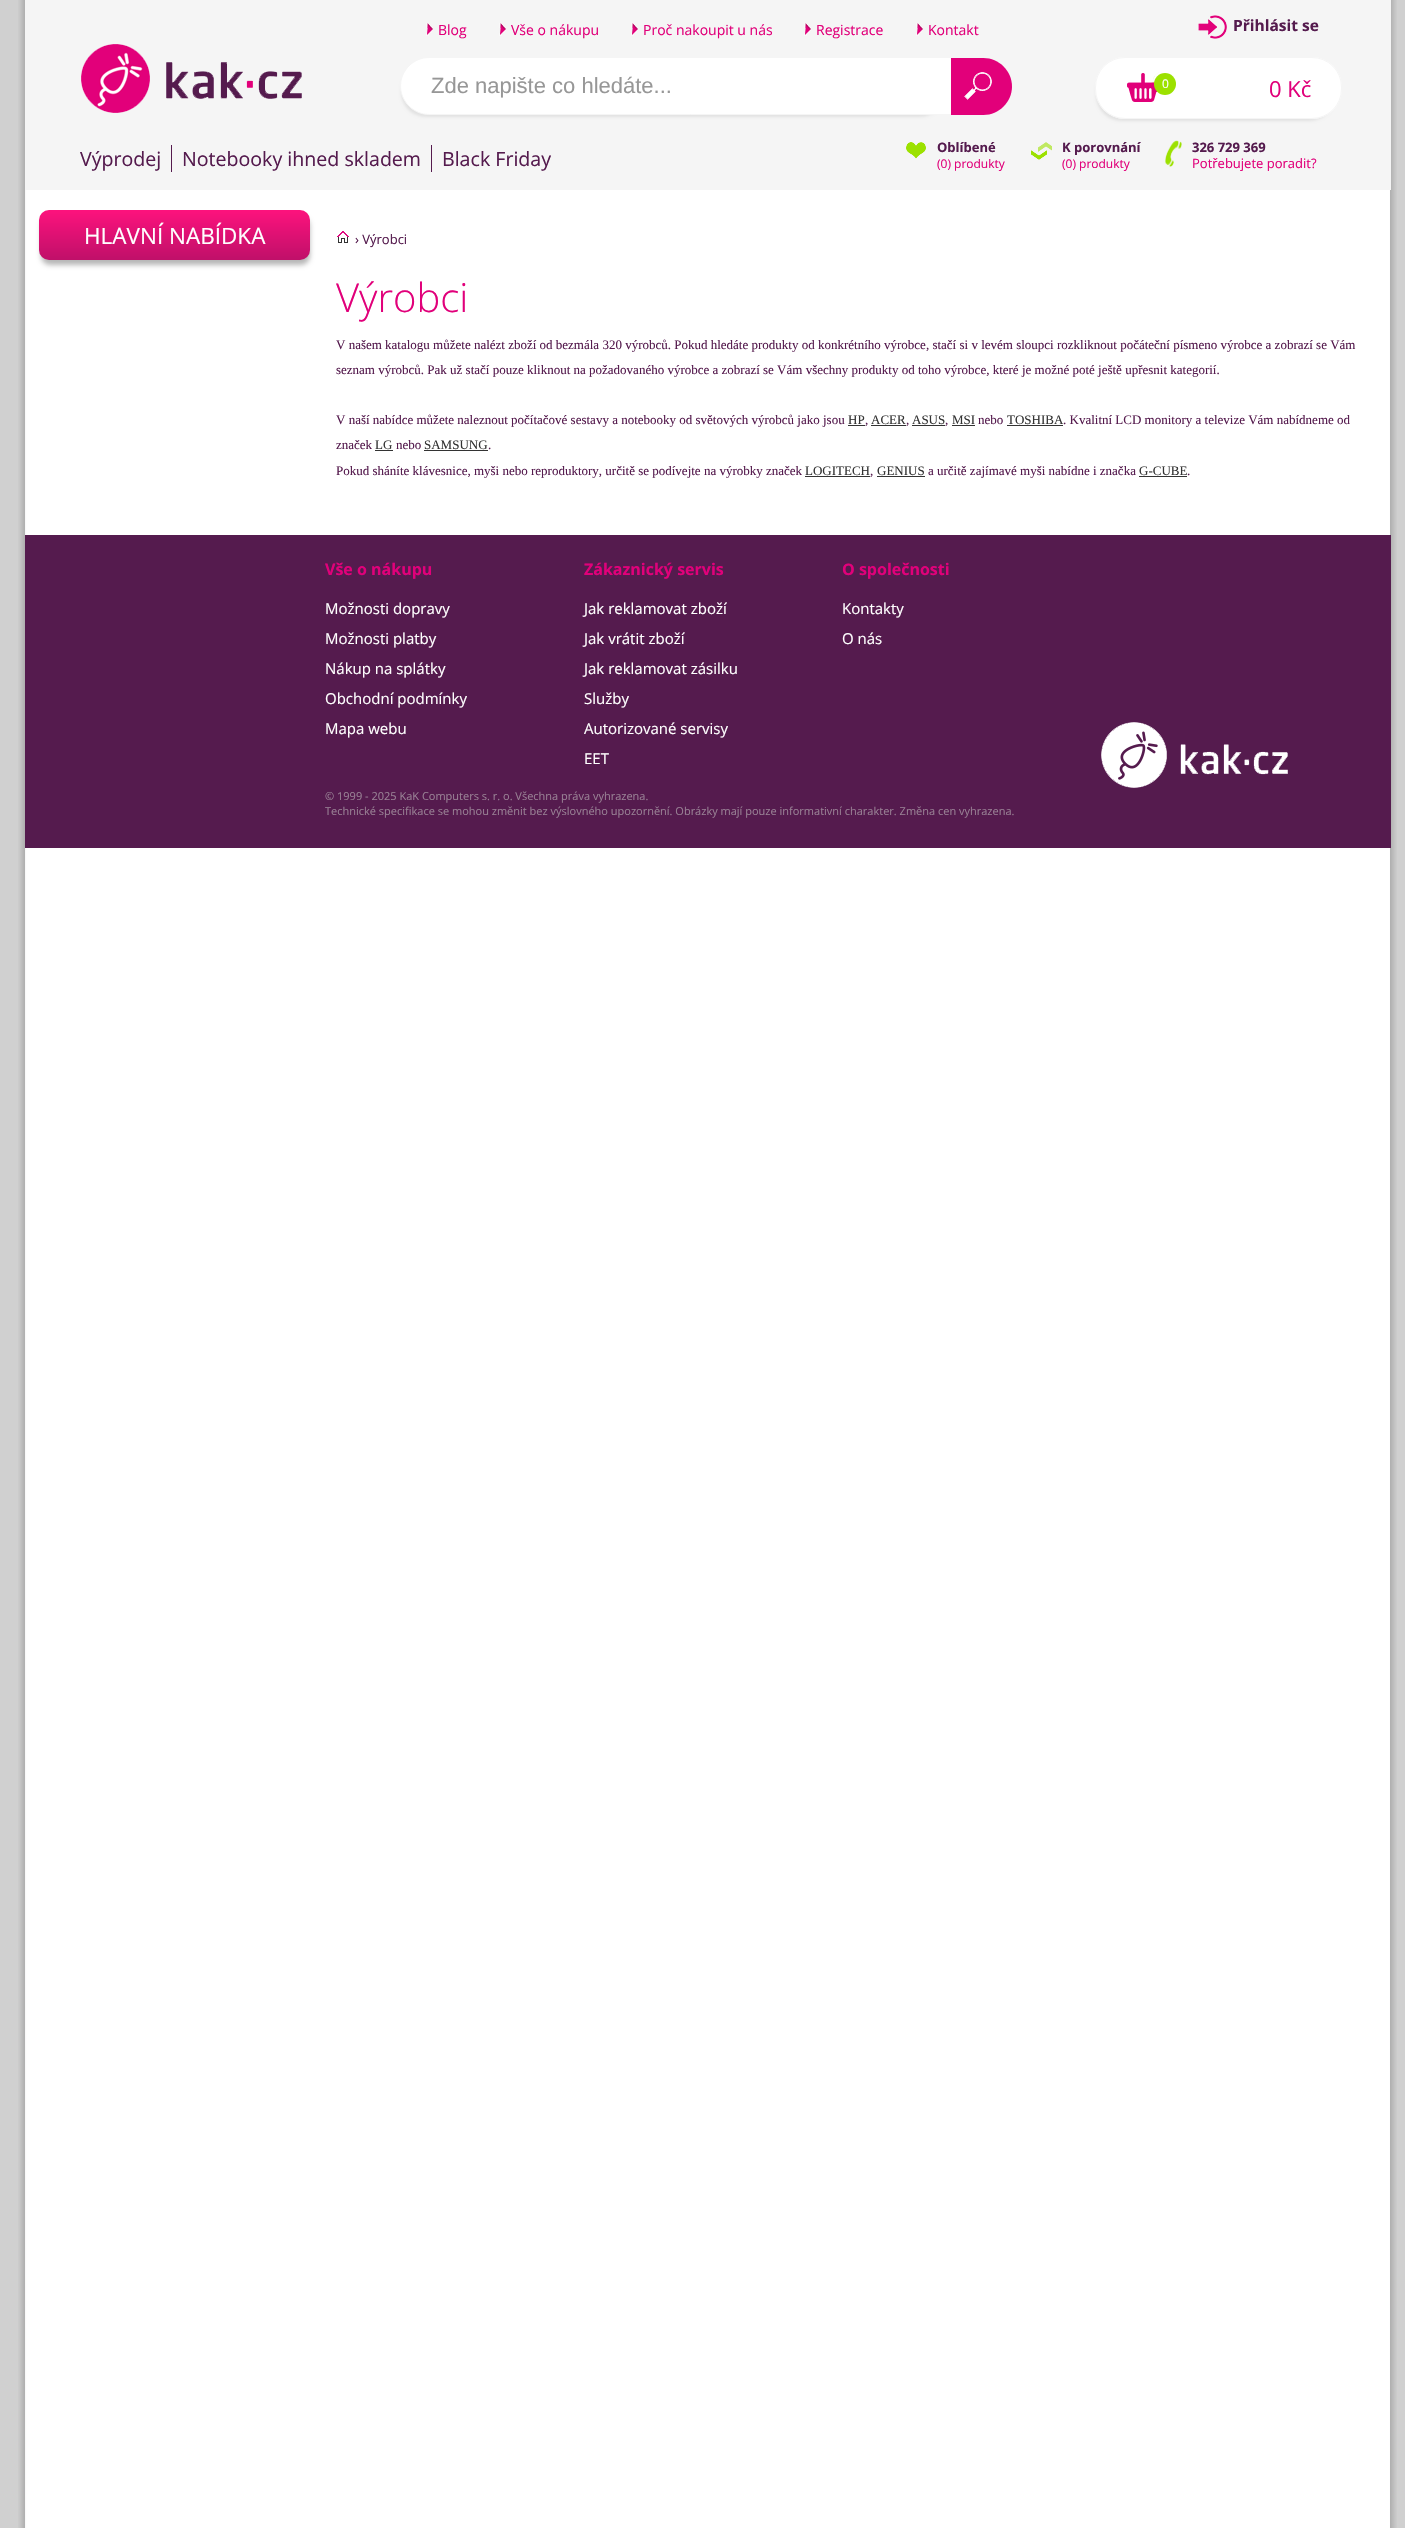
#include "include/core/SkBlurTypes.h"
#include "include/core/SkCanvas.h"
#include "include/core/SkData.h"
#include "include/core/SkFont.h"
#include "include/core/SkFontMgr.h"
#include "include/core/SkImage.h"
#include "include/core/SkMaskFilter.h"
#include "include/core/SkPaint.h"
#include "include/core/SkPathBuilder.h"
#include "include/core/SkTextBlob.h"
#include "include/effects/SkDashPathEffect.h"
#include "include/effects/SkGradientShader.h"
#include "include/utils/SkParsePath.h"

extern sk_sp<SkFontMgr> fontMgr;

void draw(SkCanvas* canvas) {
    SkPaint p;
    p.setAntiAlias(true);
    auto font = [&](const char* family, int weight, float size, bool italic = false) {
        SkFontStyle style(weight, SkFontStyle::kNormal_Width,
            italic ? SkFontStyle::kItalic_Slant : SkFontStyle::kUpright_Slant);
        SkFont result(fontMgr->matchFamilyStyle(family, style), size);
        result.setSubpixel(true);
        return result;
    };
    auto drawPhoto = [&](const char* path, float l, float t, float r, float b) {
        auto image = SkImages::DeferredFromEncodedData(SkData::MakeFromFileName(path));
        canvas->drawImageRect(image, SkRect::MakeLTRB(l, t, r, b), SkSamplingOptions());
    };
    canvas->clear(0xFFD0D0D0);
    drawPhoto("media/1.png", 18, 0, 1397, 2528);
    p.setColor(0xFFF5F5F5);
    canvas->drawRect(SkRect::MakeLTRB(25, 0, 1391, 190), p);
    drawPhoto("media/2.png", 426, 23, 433, 36);
    auto font1 = font("Open Sans", 400, 14);
    p.setColor(0xFFE1007A);
    canvas->drawString("Blog", 438, 35, font1, p);
    drawPhoto("media/2.png", 499, 23, 506, 36);
    canvas->drawString("Vše o nákupu", 511, 35, font1, p);
    drawPhoto("media/2.png", 631, 23, 638, 36);
    canvas->drawString("Proč nakoupit u nás", 643, 35, font1, p);
    drawPhoto("media/2.png", 804, 23, 811, 36);
    canvas->drawString("Registrace", 816, 35, font1, p);
    drawPhoto("media/2.png", 916, 23, 923, 36);
    canvas->drawString("Kontakt", 928, 35, font1, p);
    drawPhoto("media/3.png", 1198, 15, 1227, 39);
    auto font2 = font("Open Sans", 700, 15.5f);
    p.setColor(0xFF551B4E);
    canvas->drawString("Přihlásit se", 1233, 31, font2, p);
    drawPhoto("media/4.png", 81, 44, 302, 113);
    p.setColor(0xFFE2E2E2);
    p.setMaskFilter(SkMaskFilter::MakeBlur(kNormal_SkBlurStyle, 1.5f));
    canvas->drawRoundRect(SkRect::MakeLTRB(401, 67, 945, 117), 25, 25, p);
    p.setMaskFilter(nullptr);
    p.setColor(0xFFFFFFFF);
    canvas->drawPath(SkPathBuilder().moveTo(429, 57.5f).lineTo(951.5f, 57.5f).lineTo(951.5f, 114.5f).lineTo(429, 114.5f).cubicTo(413.5f, 114.5f, 400.5f, 101.5f, 400.5f, 86).cubicTo(400.5f, 70.5f, 413.5f, 57.5f, 429, 57.5f).close().detach(), p);
    p.setStyle(SkPaint::kStroke_Style);
    p.setStrokeWidth(1);
    p.setColor(0xFFF5F5F5);
    canvas->drawPath(SkPathBuilder().moveTo(429, 57.5f).lineTo(951.5f, 57.5f).lineTo(951.5f, 114.5f).lineTo(429, 114.5f).cubicTo(413.5f, 114.5f, 400.5f, 101.5f, 400.5f, 86).cubicTo(400.5f, 70.5f, 413.5f, 57.5f, 429, 57.5f).close().detach(), p);
    auto font3 = font("Liberation Sans", 400, 22);
    p.setStyle(SkPaint::kFill_Style);
    p.setColor(0xFF979797);
    canvas->drawString("Zde napište co hledáte...", 431, 93, font3, p);
    p.setColor(0xFFE2007A);
    canvas->drawPath(SkPathBuilder().moveTo(951, 58).lineTo(983.5f, 58).cubicTo(999, 58, 1012, 71, 1012, 86.5f).cubicTo(1012, 102, 999, 115, 983.5f, 115).lineTo(951, 115).close().detach(), p);
    drawPhoto("media/5.png", 964, 72, 992, 100);
    p.setColor(0xFFE2E2E2);
    p.setMaskFilter(SkMaskFilter::MakeBlur(kNormal_SkBlurStyle, 1.5f));
    canvas->drawRoundRect(SkRect::MakeLTRB(1096, 67, 1335, 121), 26, 26, p);
    p.setMaskFilter(nullptr);
    p.setColor(0xFFFFFFFF);
    canvas->drawRoundRect(SkRect::MakeLTRB(1095, 57, 1342, 119), 30, 30, p);
    drawPhoto("media/6.png", 1127, 72, 1161, 102);
    p.setStyle(SkPaint::kStroke_Style);
    p.setColor(0xFFF5F5F5);
    canvas->drawRoundRect(SkRect::MakeLTRB(1095.5f, 57.5f, 1341.5f, 118.5f), 29.5f, 29.5f, p);
    p.setStyle(SkPaint::kFill_Style);
    p.setColor(0xFF9CE100);
    canvas->drawCircle(1165, 84, 11, p);
    auto font4 = font("Open Sans", 400, 12);
    p.setColor(0xFFFFFFFF);
    canvas->drawString("0", 1162, 88, font4, p);
    auto font5 = font("Open Sans", 400, 22);
    p.setColor(0xFFE1007A);
    canvas->drawString("0 Kč", 1269, 97, font5, p);
    p.setColor(0xFF551B4E);
    canvas->drawRect(SkRect::MakeLTRB(171, 145, 172, 172), p);
    auto font6 = font("Open Sans", 400, 19.6f);
    canvas->drawString("Výprodej", 80, 166, font6, p);
    canvas->drawRect(SkRect::MakeLTRB(431, 145, 432, 172), p);
    canvas->drawString("Notebooky ihned skladem", 182, 166, font6, p);
    canvas->drawString("Black Friday", 442, 166, font6, p);
    drawPhoto("media/7.png", 906, 142, 926, 159);
    auto font7 = font("Open Sans", 700, 13);
    canvas->drawString("Oblíbené", 937, 152, font7, p);
    p.setColor(0xFFE1007A);
    canvas->drawString("(0) produkty", 937, 168, font4, p);
    drawPhoto("media/8.png", 1031, 142, 1052, 160);
    p.setColor(0xFF551B4E);
    canvas->drawString("K porovnání", 1062, 152, font7, p);
    p.setColor(0xFFE1007A);
    canvas->drawString("(0) produkty", 1062, 168, font4, p);
    drawPhoto("media/9.png", 1165, 140, 1182, 167);
    p.setColor(0xFF551B4E);
    canvas->drawString("326 729 369", 1192, 152, font7, p);
    auto font8 = font("Open Sans", 400, 13);
    p.setColor(0xFFE1007A);
    canvas->drawString("Potřebujete poradit?", 1192, 168, font8, p);
    p.setColor(0xFFB7B7B7);
    p.setMaskFilter(SkMaskFilter::MakeBlur(kNormal_SkBlurStyle, 2.5f));
    canvas->drawRoundRect(SkRect::MakeLTRB(41, 217, 310, 265), 9, 9, p);
    p.setMaskFilter(nullptr);
    {
        const SkColor colors[] = {0xFFFD127D, 0xFFBF1069};
        const float stops[] = {0, 1};
        const SkPoint ends[] = {{175, 210}, {175, 260}};
        p.setShader(SkGradientShader::MakeLinear(ends, colors, stops, 2, SkTileMode::kClamp));
        p.setAlpha(255);
    }
    canvas->drawRoundRect(SkRect::MakeLTRB(39, 210, 310, 260), 10, 10, p);
    auto font9 = font("Open Sans", 400, 22.5f);
    p.setShader(nullptr);
    p.setColor(0xFFFFFFFF);
    canvas->drawString("HLAVNÍ NABÍDKA", 84, 244, font9, p);
    drawPhoto("media/10.png", 337, 231, 349, 243);
    p.setColor(0xFF551B4E);
    canvas->drawString("› Výrobci", 355, 244, font8, p);
    auto font10 = font("Open Sans", 300, 40);
    p.setColor(0xFFE1007A);
    canvas->drawString("Výrobci", 336, 312, font10, p);
    auto font11 = font("Liberation Serif", 400, 13);
    p.setColor(0xFF551B4E);
    {
        const struct { const char* s; float x, y; } items[] = {
            {"V našem katalogu můžete nalézt zboží od bezmála 320 výrobců. Pokud hledáte produkty od konkrétního výrobce, stačí si v levém sloupci rozkliknout počáteční písmeno výrobce a zobrazí se Vám", 336, 349},
            {"seznam výrobců. Pak už stačí pouze kliknout na požadovaného výrobce a zobrazí se Vám všechny produkty od toho výrobce, které je možné poté ještě upřesnit kategorií.", 336, 374},
            {"V naší nabídce můžete naleznout počítačové sestavy a notebooky od světových výrobců jako jsou", 336, 424},
        };
        for (auto [s, x, y] : items) {
            canvas->drawString(s, x, y, font11, p);
        }
    }
    p.setColor(0xFF333333);
    canvas->drawString("HP", 848, 424, font11, p);
    p.setColor(0xFF551B4E);
    canvas->drawString(",", 865, 424, font11, p);
    p.setColor(0xFF333333);
    canvas->drawRect(SkRect::MakeLTRB(848, 425, 865, 426), p);
    canvas->drawString("ACER", 871, 424, font11, p);
    p.setColor(0xFF551B4E);
    canvas->drawString(",", 906, 424, font11, p);
    p.setColor(0xFF333333);
    canvas->drawRect(SkRect::MakeLTRB(871, 425, 906, 426), p);
    canvas->drawString("ASUS", 912, 424, font11, p);
    p.setColor(0xFF551B4E);
    canvas->drawString(",", 945, 424, font11, p);
    p.setColor(0xFF333333);
    canvas->drawRect(SkRect::MakeLTRB(912, 425, 945, 426), p);
    canvas->drawRect(SkRect::MakeLTRB(952, 425, 975, 426), p);
    canvas->drawString("MSI", 952, 424, font11, p);
    p.setColor(0xFF551B4E);
    canvas->drawString("nebo", 978, 424, font11, p);
    p.setColor(0xFF333333);
    canvas->drawString("TOSHIBA", 1007, 424, font11, p);
    canvas->drawRect(SkRect::MakeLTRB(1007, 425, 1063, 426), p);
    p.setColor(0xFF551B4E);
    canvas->drawString(". Kvalitní LCD monitory a televize Vám nabídneme od", 1063, 424, font11, p);
    canvas->drawString("značek", 336, 449, font11, p);
    p.setColor(0xFF333333);
    canvas->drawString("LG", 375, 449, font11, p);
    canvas->drawRect(SkRect::MakeLTRB(375, 450, 393, 451), p);
    p.setColor(0xFF551B4E);
    canvas->drawString("nebo", 396, 449, font11, p);
    p.setColor(0xFF333333);
    canvas->drawString("SAMSUNG", 424, 449, font11, p);
    p.setColor(0xFF551B4E);
    canvas->drawString(".", 488, 449, font11, p);
    p.setColor(0xFF333333);
    canvas->drawRect(SkRect::MakeLTRB(424, 450, 488, 451), p);
    p.setColor(0xFF551B4E);
    canvas->drawString("Pokud sháníte klávesnice, myši nebo reproduktory, určitě se podívejte na výrobky značek", 336, 475, font11, p);
    p.setColor(0xFF333333);
    canvas->drawString("LOGITECH", 805, 475, font11, p);
    p.setColor(0xFF551B4E);
    canvas->drawString(",", 870, 475, font11, p);
    p.setColor(0xFF333333);
    canvas->drawRect(SkRect::MakeLTRB(805, 476, 870, 477), p);
    canvas->drawRect(SkRect::MakeLTRB(877, 476, 925, 477), p);
    canvas->drawString("GENIUS", 877, 475, font11, p);
    p.setColor(0xFF551B4E);
    canvas->drawString("a určitě zajímavé myši nabídne i značka", 928, 475, font11, p);
    p.setColor(0xFF333333);
    canvas->drawString("G-CUBE", 1139, 475, font11, p);
    p.setColor(0xFF551B4E);
    canvas->drawString(".", 1187, 475, font11, p);
    p.setColor(0xFF333333);
    canvas->drawRect(SkRect::MakeLTRB(1139, 476, 1187, 477), p);
    p.setColor(0xFF551B4E);
    canvas->drawRect(SkRect::MakeLTRB(25, 535, 1391, 848), p);
    auto font12 = font("Open Sans", 700, 16);
    p.setColor(0xFFE1007A);
    canvas->drawString("Vše o nákupu", 325, 575, font12, p);
    auto font13 = font("Open Sans", 400, 15);
    p.setColor(0xFFFFFFFF);
    {
        const struct { const char* s; float x, y; } items[] = {
            {"Možnosti dopravy", 325, 614},
            {"Možnosti platby", 325, 644},
            {"Nákup na splátky", 325, 674},
            {"Obchodní podmínky", 325, 704},
            {"Mapa webu", 325, 734},
        };
        for (auto [s, x, y] : items) {
            canvas->drawString(s, x, y, font13, p);
        }
    }
    p.setColor(0xFFE1007A);
    canvas->drawString("Zákaznický servis", 584, 575, font12, p);
    p.setColor(0xFFFFFFFF);
    {
        const struct { const char* s; float x, y; } items[] = {
            {"Jak reklamovat zboží", 584, 614},
            {"Jak vrátit zboží", 584, 644},
            {"Jak reklamovat zásilku", 584, 674},
            {"Služby", 584, 704},
            {"Autorizované servisy", 584, 734},
            {"EET", 584, 764},
        };
        for (auto [s, x, y] : items) {
            canvas->drawString(s, x, y, font13, p);
        }
    }
    p.setColor(0xFFE1007A);
    canvas->drawString("O společnosti", 842, 575, font12, p);
    p.setColor(0xFFFFFFFF);
    canvas->drawString("Kontakty", 842, 614, font13, p);
    canvas->drawString("O nás", 842, 644, font13, p);
    drawPhoto("media/11.png", 1101, 722, 1288, 788);
    auto font14 = font("Open Sans", 400, 11);
    p.setColor(0xFF988094);
    canvas->drawString("© 1999 - 2025 KaK Computers s. r. o. Všechna práva vyhrazena.", 325, 800, font14, p);
    canvas->drawString("Technické specifikace se mohou změnit bez výslovného upozornění. Obrázky mají pouze informativní charakter. Změna cen vyhrazena.", 325, 815, font14, p);
}
